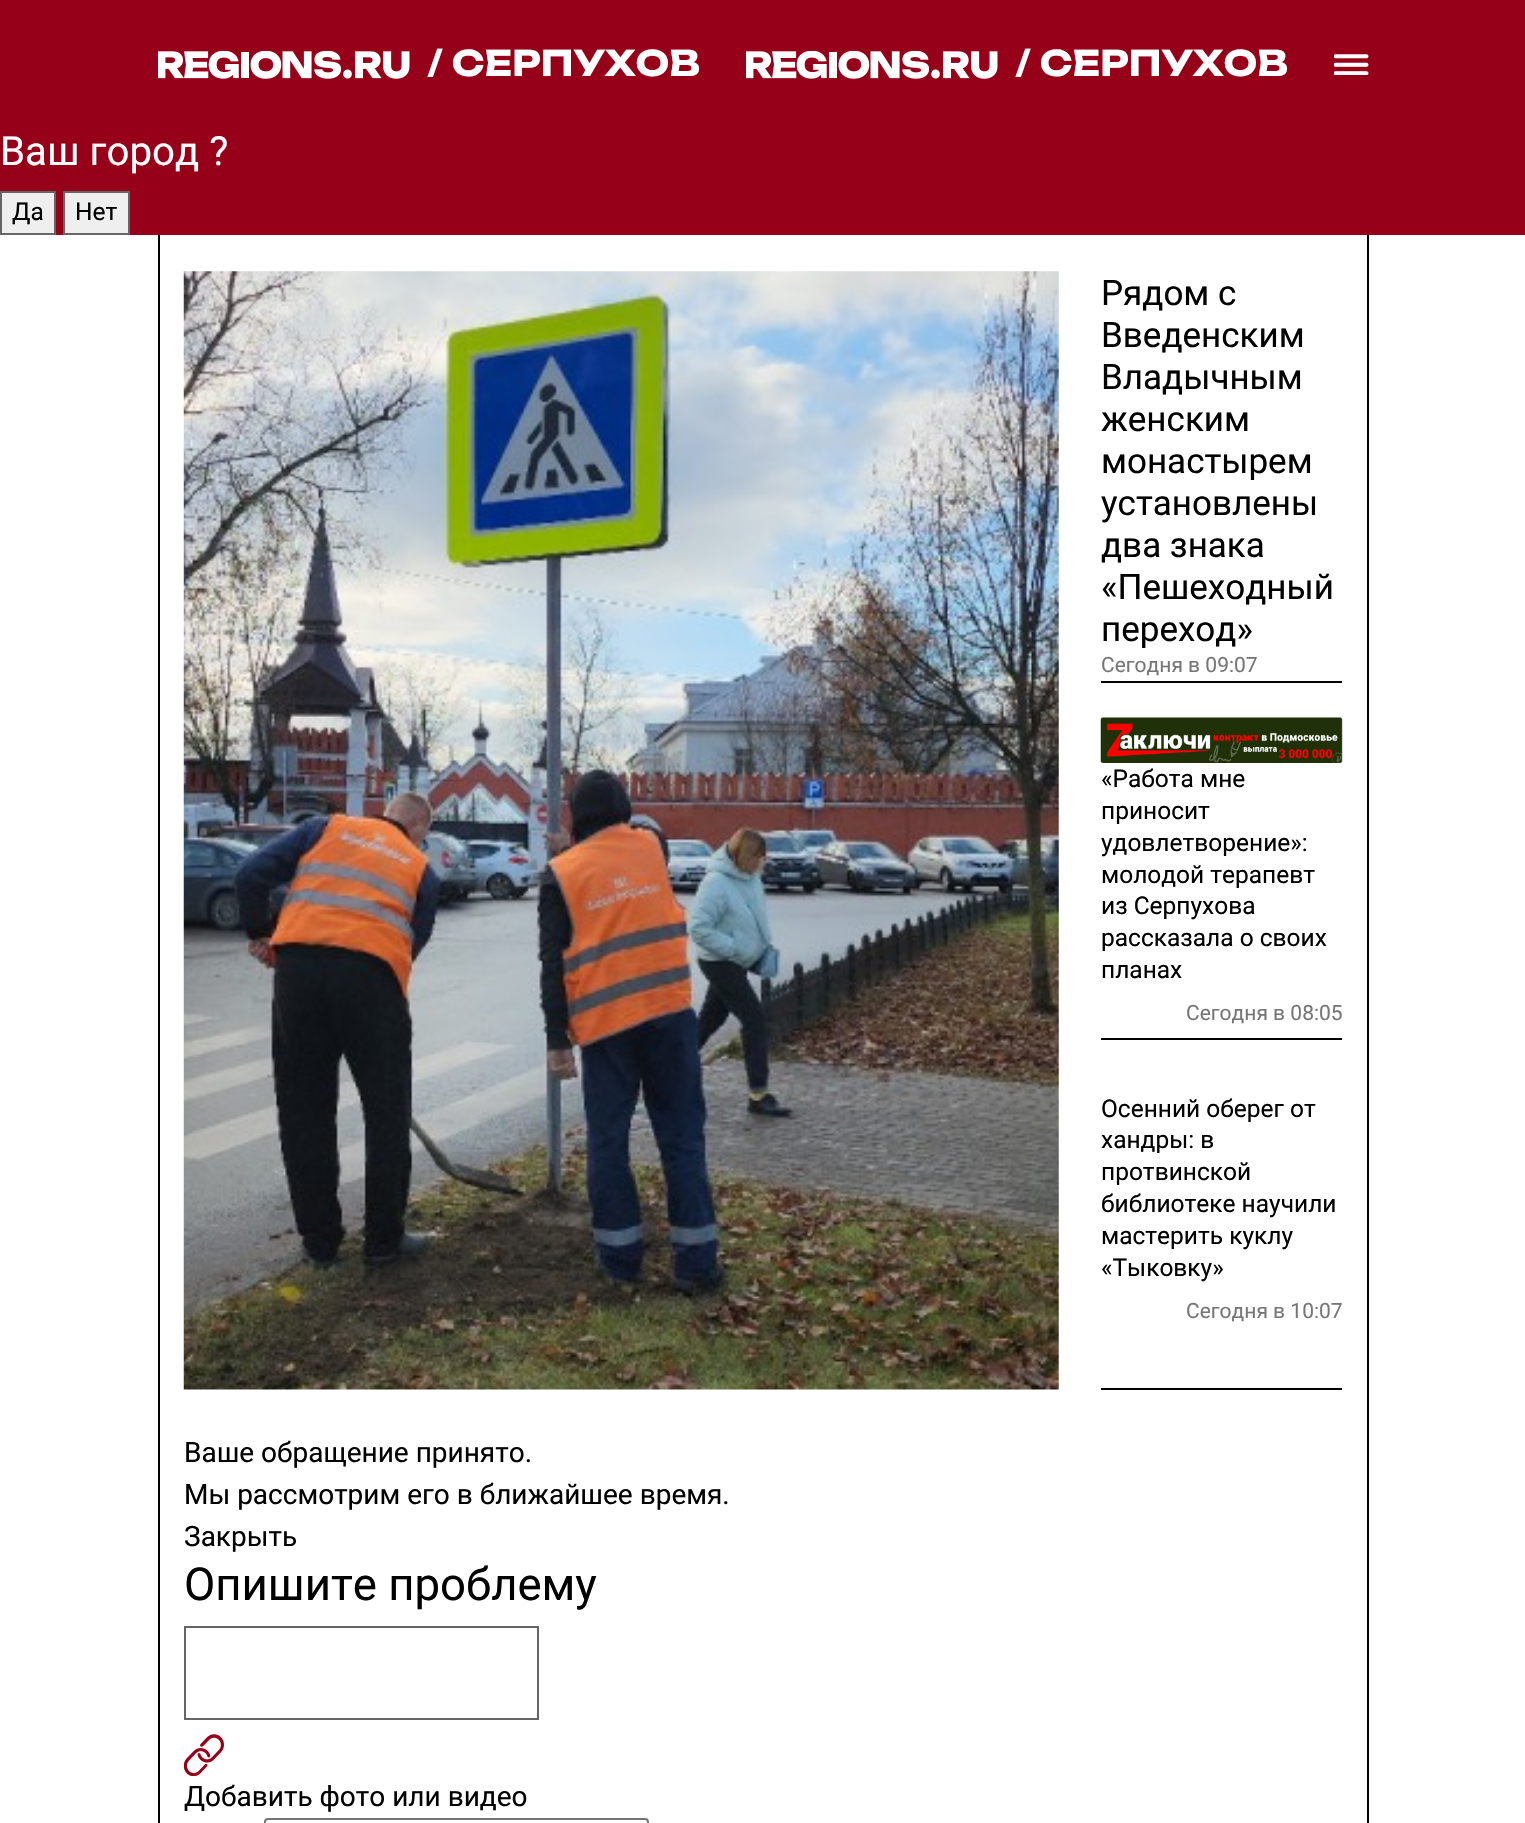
#include "include/core/SkBlurTypes.h"
#include "include/core/SkCanvas.h"
#include "include/core/SkData.h"
#include "include/core/SkFont.h"
#include "include/core/SkFontMgr.h"
#include "include/core/SkImage.h"
#include "include/core/SkMaskFilter.h"
#include "include/core/SkPaint.h"
#include "include/core/SkPathBuilder.h"
#include "include/core/SkTextBlob.h"
#include "include/effects/SkDashPathEffect.h"
#include "include/effects/SkGradientShader.h"
#include "include/utils/SkParsePath.h"

extern sk_sp<SkFontMgr> fontMgr;

void draw(SkCanvas* canvas) {
    SkPaint p;
    p.setAntiAlias(true);
    auto font = [&](const char* family, int weight, float size, bool italic = false) {
        SkFontStyle style(weight, SkFontStyle::kNormal_Width,
            italic ? SkFontStyle::kItalic_Slant : SkFontStyle::kUpright_Slant);
        SkFont result(fontMgr->matchFamilyStyle(family, style), size);
        result.setSubpixel(true);
        return result;
    };
    auto drawPhoto = [&](const char* path, float l, float t, float r, float b) {
        auto image = SkImages::DeferredFromEncodedData(SkData::MakeFromFileName(path));
        canvas->drawImageRect(image, SkRect::MakeLTRB(l, t, r, b), SkSamplingOptions());
    };
    canvas->clear(0xFFFFFFFF);
    p.setColor(0xFF960018);
    canvas->drawRect(SkRect::MakeLTRB(0, 0, 1525, 235), p);
    drawPhoto("media/1.png", 158, 51, 410, 79);
    auto font1 = font("Unbounded", 700, 35);
    p.setColor(0xFFFFFFFF);
    canvas->drawString("/ СЕРПУХОВ", 427, 76, font1, p);
    drawPhoto("media/1.png", 746, 51, 998, 79);
    canvas->drawString("/ СЕРПУХОВ", 1015, 76, font1, p);
    drawPhoto("media/2.png", 1334, 54, 1369, 75);
    auto font2 = font("Roboto", 400, 40.25f);
    canvas->drawString("Ваш город ?", 0, 165, font2, p);
    p.setColor(0xFFEFEFEF);
    canvas->drawRect(SkRect::MakeLTRB(1, 192, 55, 234), p);
    p.setStyle(SkPaint::kStroke_Style);
    p.setStrokeWidth(2);
    p.setColor(0xFF666666);
    canvas->drawRect(SkRect::MakeLTRB(1, 192, 55, 234), p);
    auto font3 = font("Roboto", 400, 24.5f);
    p.setStyle(SkPaint::kFill_Style);
    p.setColor(0xFF000000);
    canvas->drawString("Да", 12, 220, font3, p);
    p.setColor(0xFFEFEFEF);
    canvas->drawRect(SkRect::MakeLTRB(64, 192, 129, 234), p);
    p.setStyle(SkPaint::kStroke_Style);
    p.setColor(0xFF666666);
    canvas->drawRect(SkRect::MakeLTRB(64, 192, 129, 234), p);
    p.setStyle(SkPaint::kFill_Style);
    p.setColor(0xFF000000);
    canvas->drawString("Нет", 75, 220, font3, p);
    canvas->drawRect(SkRect::MakeLTRB(1367, 235, 1369, 1823), p);
    canvas->drawRect(SkRect::MakeLTRB(158, 235, 160, 1823), p);
    drawPhoto("media/3.png", 183, 271, 1059, 1390);
    canvas->drawRect(SkRect::MakeLTRB(1101, 1388, 1342, 1390), p);
    auto font4 = font("Roboto", 400, 35);
    {
        const struct { const char* s; float x, y; } items[] = {
            {"Рядом с", 1101, 305},
            {"Введенским", 1101, 347},
            {"Владычным", 1101, 389},
            {"женским", 1101, 431},
            {"монастырем", 1101, 473},
            {"установлены", 1101, 515},
            {"два знака", 1101, 557},
            {"«Пешеходный", 1101, 599},
            {"переход»", 1101, 641},
        };
        for (auto [s, x, y] : items) {
            canvas->drawString(s, x, y, font4, p);
        }
    }
    canvas->drawRect(SkRect::MakeLTRB(1101, 681, 1342, 683), p);
    auto font5 = font("Roboto", 400, 21);
    p.setColor(0xFF767676);
    canvas->drawString("Сегодня в 09:07", 1101, 672, font5, p);
    drawPhoto("media/4.png", 1100, 717, 1343, 763);
    p.setColor(0xFF000000);
    canvas->drawRect(SkRect::MakeLTRB(1101, 1038, 1342, 1040), p);
    {
        const struct { const char* s; float x, y; } items[] = {
            {"«Работа мне", 1101, 787},
            {"приносит", 1101, 819},
            {"удовлетворение»:", 1101, 851},
            {"молодой терапевт", 1101, 883},
            {"из Серпухова", 1101, 914},
            {"рассказала о своих", 1101, 946},
            {"планах", 1101, 978},
        };
        for (auto [s, x, y] : items) {
            canvas->drawString(s, x, y, font3, p);
        }
    }
    p.setColor(0xFF767676);
    canvas->drawString("Сегодня в 08:05", 1186, 1020, font5, p);
    p.setColor(0xFF000000);
    {
        const struct { const char* s; float x, y; } items[] = {
            {"Осенний оберег от", 1101, 1117},
            {"хандры: в", 1101, 1148},
            {"протвинской", 1101, 1180},
            {"библиотеке научили", 1101, 1212},
            {"мастерить куклу", 1101, 1244},
            {"«Тыковку»", 1101, 1276},
        };
        for (auto [s, x, y] : items) {
            canvas->drawString(s, x, y, font3, p);
        }
    }
    p.setColor(0xFF767676);
    canvas->drawString("Сегодня в 10:07", 1186, 1318, font5, p);
    auto font6 = font("Roboto", 400, 28);
    p.setColor(0xFF000000);
    {
        const struct { const char* s; float x, y; } items[] = {
            {"Ваше обращение принято.", 184, 1462},
            {"Мы рассмотрим его в ближайшее время.", 184, 1504},
            {"Закрыть", 184, 1546},
        };
        for (auto [s, x, y] : items) {
            canvas->drawString(s, x, y, font6, p);
        }
    }
    auto font7 = font("Roboto", 400, 45.5f);
    canvas->drawString("Опишите проблему", 184, 1600, font7, p);
    p.setStyle(SkPaint::kStroke_Style);
    p.setColor(0xFF666666);
    canvas->drawRect(SkRect::MakeLTRB(185, 1627, 538, 1719), p);
    drawPhoto("media/5.png", 184, 1734, 224, 1776);
    p.setStyle(SkPaint::kFill_Style);
    p.setColor(0xFF000000);
    canvas->drawString("Добавить фото или видео", 184, 1806, font6, p);
    p.setStyle(SkPaint::kStroke_Style);
    p.setColor(0xFF767676);
    canvas->drawRoundRect(SkRect::MakeLTRB(265, 1819, 648, 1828), 3, 3, p);
}
